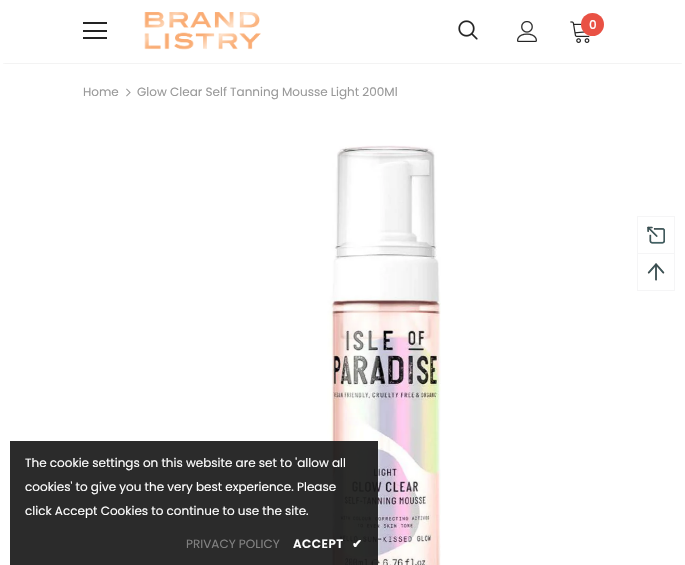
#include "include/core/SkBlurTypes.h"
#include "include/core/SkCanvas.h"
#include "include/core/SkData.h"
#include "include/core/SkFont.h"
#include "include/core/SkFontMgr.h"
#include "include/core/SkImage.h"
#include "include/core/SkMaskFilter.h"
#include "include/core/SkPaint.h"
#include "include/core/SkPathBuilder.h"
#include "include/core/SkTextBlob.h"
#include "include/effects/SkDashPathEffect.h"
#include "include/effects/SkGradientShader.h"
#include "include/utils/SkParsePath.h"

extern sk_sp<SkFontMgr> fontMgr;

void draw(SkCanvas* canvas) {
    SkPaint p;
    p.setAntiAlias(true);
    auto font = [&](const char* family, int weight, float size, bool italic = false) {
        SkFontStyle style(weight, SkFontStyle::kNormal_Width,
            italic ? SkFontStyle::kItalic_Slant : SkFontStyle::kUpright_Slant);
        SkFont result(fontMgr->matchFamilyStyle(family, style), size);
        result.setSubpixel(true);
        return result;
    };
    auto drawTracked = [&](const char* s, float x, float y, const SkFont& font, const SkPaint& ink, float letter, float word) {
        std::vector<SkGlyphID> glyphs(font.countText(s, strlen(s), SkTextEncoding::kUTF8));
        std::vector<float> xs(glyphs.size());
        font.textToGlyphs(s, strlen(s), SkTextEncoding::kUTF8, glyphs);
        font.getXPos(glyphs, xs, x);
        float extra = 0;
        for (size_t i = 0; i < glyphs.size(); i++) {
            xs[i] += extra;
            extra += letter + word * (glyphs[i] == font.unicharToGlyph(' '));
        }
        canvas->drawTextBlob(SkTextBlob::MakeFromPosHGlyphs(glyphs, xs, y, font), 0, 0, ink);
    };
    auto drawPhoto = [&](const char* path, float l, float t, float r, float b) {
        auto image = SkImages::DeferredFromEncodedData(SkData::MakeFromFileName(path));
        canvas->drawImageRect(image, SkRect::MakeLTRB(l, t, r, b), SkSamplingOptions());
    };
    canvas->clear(0xFFFFFFFF);
    canvas->save();
    canvas->clipRect(SkRect::MakeLTRB(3, 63, 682, 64));
    p.setColor(0x1F000000);
    p.setMaskFilter(SkMaskFilter::MakeBlur(kNormal_SkBlurStyle, 1.5f));
    canvas->drawRect(SkRect::MakeLTRB(3, 6, 682, 63), p);
    p.setMaskFilter(nullptr);
    canvas->restore();
    {
        const struct { float l, t, r, b; SkColor color; } items[] = {
            {83, 22, 107, 24, 0xFF232323},
            {83, 30, 107, 32, 0xFF232323},
            {83, 37, 107, 39, 0xFF232323},
        };
        for (auto [l, t, r, b, color] : items) {
            p.setColor(color);
            canvas->drawRect(SkRect::MakeLTRB(l, t, r, b), p);
        }
    }
    drawPhoto("media/1.png", 144, 12, 261, 50);
    drawPhoto("media/2.png", 458, 20, 478, 40);
    drawPhoto("media/3.png", 517, 21, 537, 42);
    drawPhoto("media/4.png", 570, 21, 590, 43);
    p.setColor(0xFFE95144);
    canvas->drawCircle(592.5f, 24.5f, 11.5f, p);
    auto font1 = font("Poppins", 500, 12);
    p.setColor(0xFFFFFFFF);
    canvas->drawString("0", 589, 29, font1, p);
    auto font2 = font("Poppins", 400, 12);
    p.setColor(0xFF999999);
    canvas->drawString("Home", 83, 96, font2, p);
    drawPhoto("media/5.png", 126, 88, 131, 97);
    canvas->drawString("Glow Clear Self Tanning Mousse Light 200Ml", 137, 96, font2, p);
    drawPhoto("media/6.png", 327, 145, 441, 565);
    p.setColor(0xE6141414);
    canvas->drawRect(SkRect::MakeLTRB(10, 441, 378, 565), p);
    p.setColor(0xFFFFFFFF);
    {
        const struct { const char* s; float x, y; } items[] = {
            {"The cookie settings on this website are set to 'allow all", 25, 467},
            {"cookies' to give you the very best experience. Please", 25, 491},
            {"click Accept Cookies to continue to use the site.", 25, 515},
        };
        for (auto [s, x, y] : items) {
            canvas->drawString(s, x, y, font2, p);
        }
    }
    p.setColor(0xFF818181);
    canvas->drawString("PRIVACY POLICY", 186, 548, font2, p);
    auto font3 = font("Poppins", 600, 12);
    p.setColor(0xFFFFFFFF);
    drawTracked("ACCEPT", 293, 548, font3, p, 0.5f, 0);
    auto font4 = font("DejaVu Sans", 700, 12);
    drawTracked("✔", 352, 548, font4, p, 0.5f, 0);
    {
        const struct { float l, t, r, b; SkColor color; } items[] = {
            {637, 216, 675, 217, 0xFFF5F5F6},
            {674, 216, 675, 253, 0xFFF5F5F6},
            {637, 216, 638, 253, 0xFFF5F5F6},
        };
        for (auto [l, t, r, b, color] : items) {
            p.setColor(color);
            canvas->drawRect(SkRect::MakeLTRB(l, t, r, b), p);
        }
    }
    drawPhoto("media/7.png", 647, 226, 665, 244);
    p.setStyle(SkPaint::kStroke_Style);
    p.setStrokeWidth(1);
    canvas->drawRect(SkRect::MakeLTRB(637.5f, 253.5f, 674.5f, 290.5f), p);
    drawPhoto("media/8.png", 647, 263, 665, 281);
}
